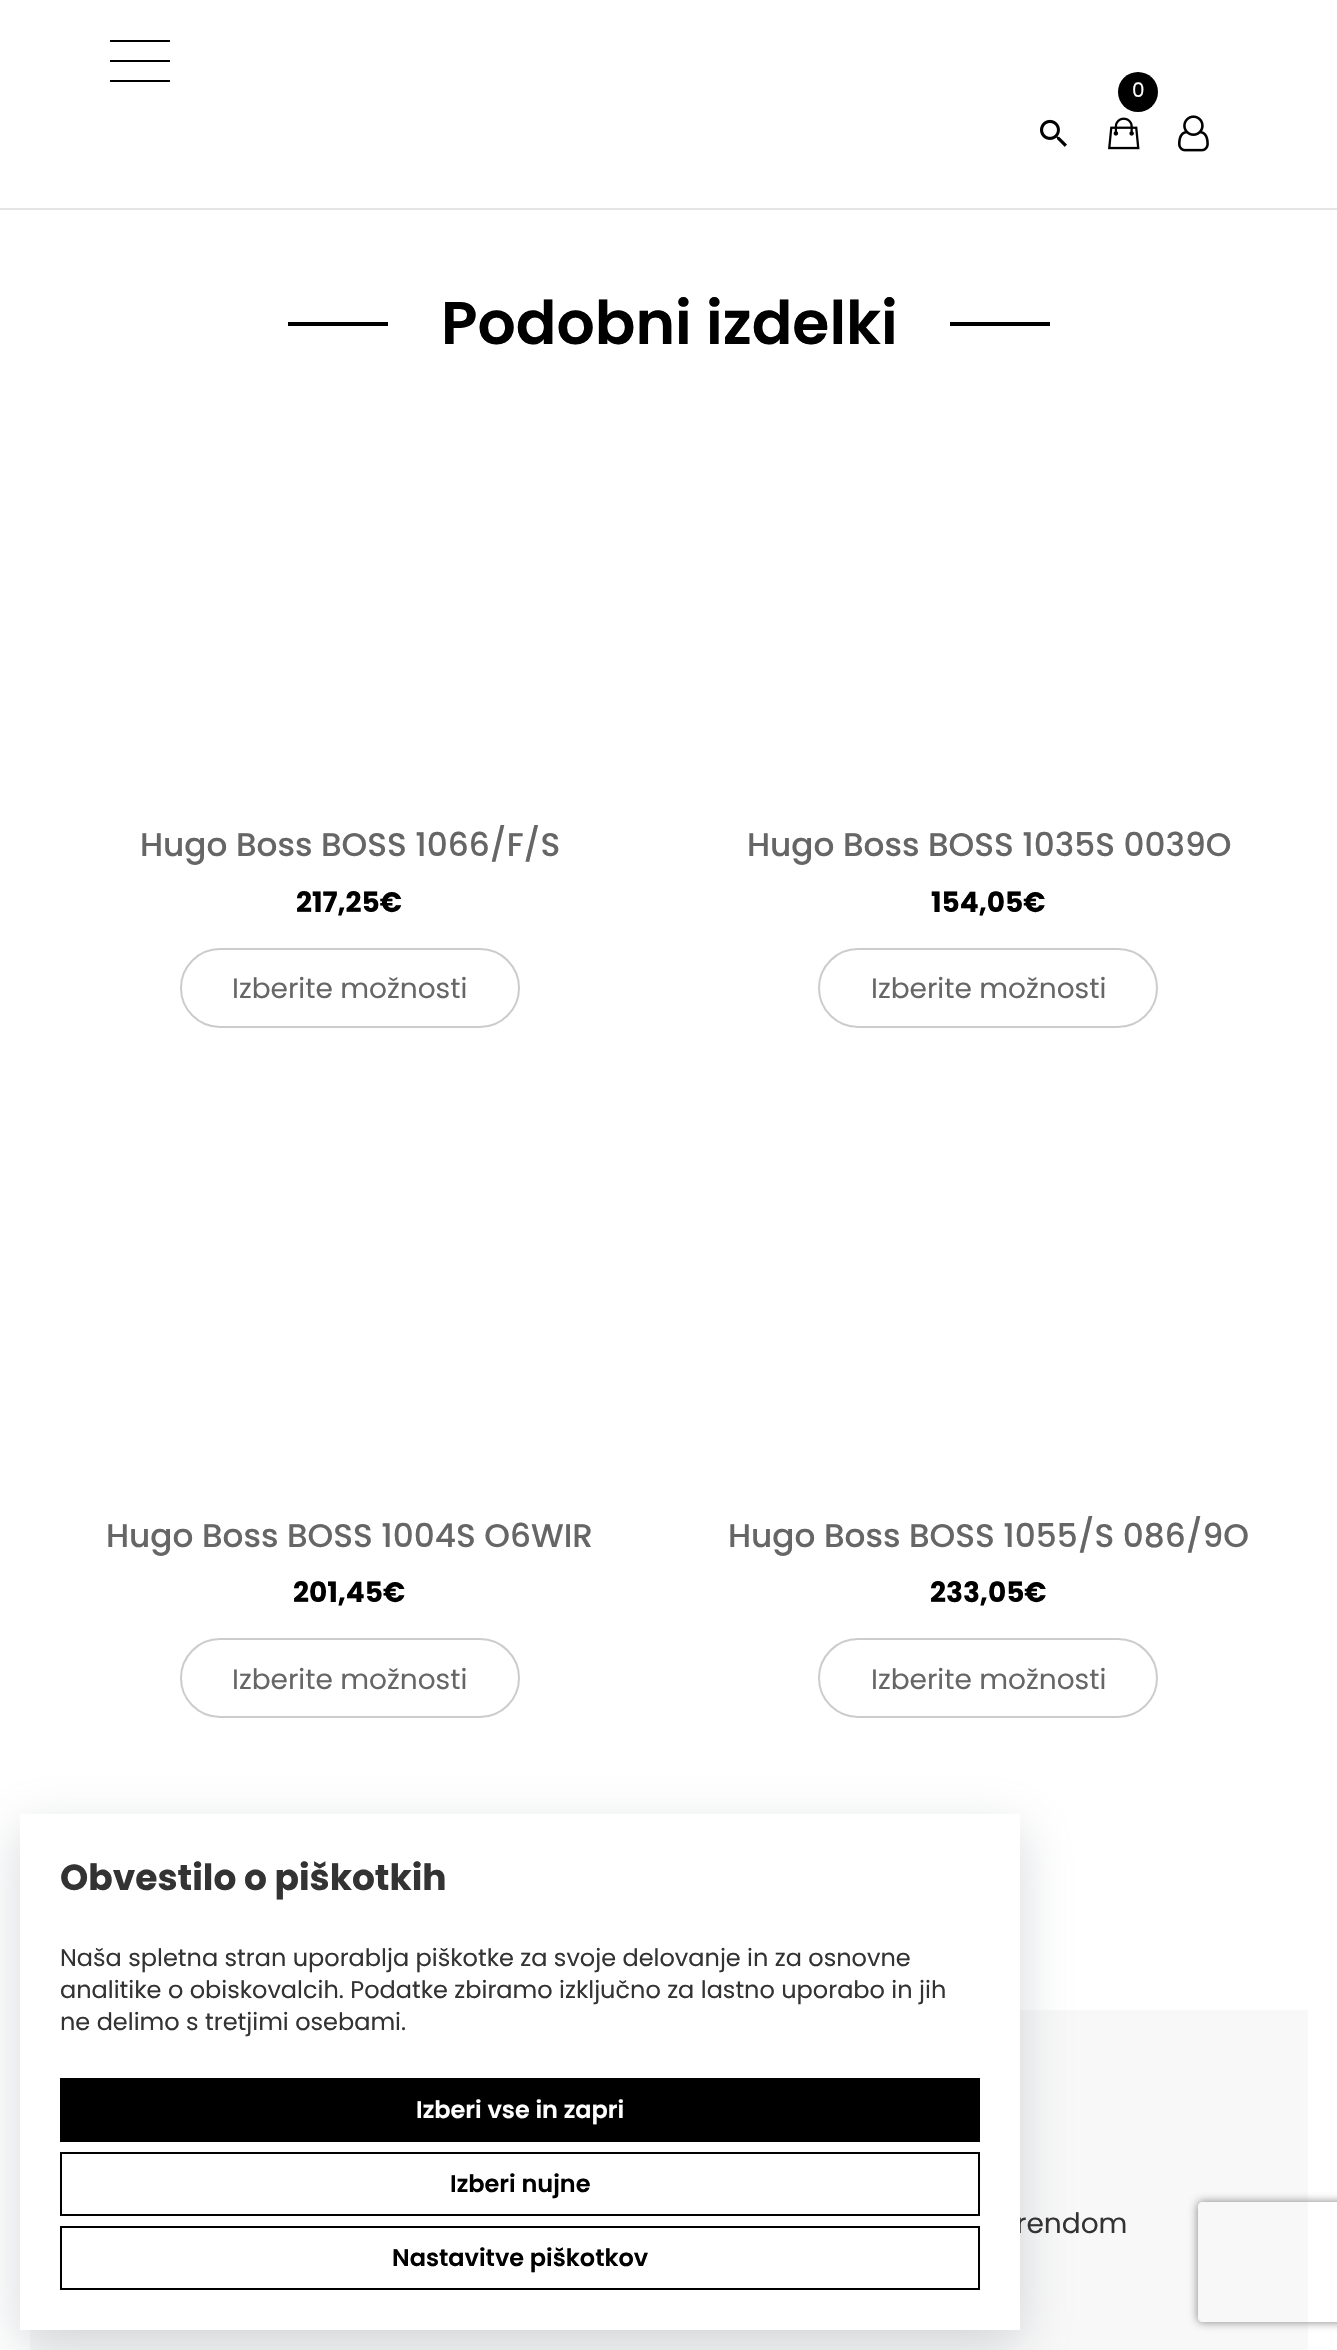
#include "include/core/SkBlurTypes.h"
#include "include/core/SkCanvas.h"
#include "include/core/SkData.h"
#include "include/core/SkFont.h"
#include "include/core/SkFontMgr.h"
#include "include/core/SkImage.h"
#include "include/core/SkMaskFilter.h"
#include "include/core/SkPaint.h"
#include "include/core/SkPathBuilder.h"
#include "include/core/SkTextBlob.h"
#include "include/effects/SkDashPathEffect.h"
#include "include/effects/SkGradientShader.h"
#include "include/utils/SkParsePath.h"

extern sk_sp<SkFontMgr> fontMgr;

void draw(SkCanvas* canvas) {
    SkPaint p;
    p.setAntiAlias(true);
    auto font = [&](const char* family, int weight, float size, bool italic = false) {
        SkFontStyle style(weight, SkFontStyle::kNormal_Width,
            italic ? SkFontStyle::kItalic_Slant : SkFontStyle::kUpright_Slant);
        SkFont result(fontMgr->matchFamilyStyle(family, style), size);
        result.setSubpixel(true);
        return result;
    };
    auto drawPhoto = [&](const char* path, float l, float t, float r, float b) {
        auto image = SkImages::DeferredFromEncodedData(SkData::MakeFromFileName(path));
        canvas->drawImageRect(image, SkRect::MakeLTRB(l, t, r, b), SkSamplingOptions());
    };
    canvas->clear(0xFFFFFFFF);
    {
        const struct { float l, t, r, b; SkColor color; } items[] = {
            {0, 208, 1337, 210, 0xFFE5E5E5},
            {110, 60, 170, 62, 0xFF000000},
            {110, 40, 170, 42, 0xFF000000},
            {110, 80, 170, 82, 0xFF000000},
        };
        for (auto [l, t, r, b, color] : items) {
            p.setColor(color);
            canvas->drawRect(SkRect::MakeLTRB(l, t, r, b), p);
        }
    }
    canvas->drawCircle(1138, 92, 20, p);
    auto font1 = font("Poppins", 400, 20);
    p.setColor(0xFFFFFFFF);
    canvas->drawString("0", 1132, 97, font1, p);
    drawPhoto("media/1.png", 1108, 117, 1140, 150);
    drawPhoto("media/2.png", 1040, 119, 1067, 147);
    drawPhoto("media/3.png", 1178, 115, 1209, 152);
    p.setColor(0xFF000000);
    canvas->drawRect(SkRect::MakeLTRB(288, 322, 388, 326), p);
    auto font2 = font("Poppins", 600, 60);
    canvas->drawString("Podobni izdelki", 441, 344, font2, p);
    canvas->drawRect(SkRect::MakeLTRB(950, 322, 1050, 326), p);
    auto font3 = font("Poppins", 500, 32.75f);
    p.setColor(0xFF666666);
    canvas->drawString("Hugo Boss BOSS 1066/F/S", 140, 856, font3, p);
    auto font4 = font("Poppins", 700, 28);
    p.setColor(0xFF000000);
    canvas->drawString("217,25€", 296, 912, font4, p);
    p.setStyle(SkPaint::kStroke_Style);
    p.setStrokeWidth(2);
    p.setColor(0xFFCCCCCC);
    canvas->drawRoundRect(SkRect::MakeLTRB(181, 949, 519, 1027), 39, 39, p);
    auto font5 = font("Poppins", 400, 28);
    p.setStyle(SkPaint::kFill_Style);
    p.setColor(0xFF666666);
    canvas->drawString("Izberite možnosti", 232, 998, font5, p);
    canvas->drawString("Hugo Boss BOSS 1035S 0039O", 747, 856, font3, p);
    p.setColor(0xFF000000);
    canvas->drawString("154,05€", 931, 912, font4, p);
    p.setStyle(SkPaint::kStroke_Style);
    p.setColor(0xFFCCCCCC);
    canvas->drawRoundRect(SkRect::MakeLTRB(819, 949, 1157, 1027), 39, 39, p);
    p.setStyle(SkPaint::kFill_Style);
    p.setColor(0xFF666666);
    canvas->drawString("Izberite možnosti", 871, 998, font5, p);
    canvas->drawString("Hugo Boss BOSS 1004S O6WIR", 106, 1547, font3, p);
    p.setColor(0xFF000000);
    canvas->drawString("201,45€", 293, 1602, font4, p);
    p.setStyle(SkPaint::kStroke_Style);
    p.setColor(0xFFCCCCCC);
    canvas->drawRoundRect(SkRect::MakeLTRB(181, 1639, 519, 1717), 39, 39, p);
    p.setStyle(SkPaint::kFill_Style);
    p.setColor(0xFF666666);
    canvas->drawString("Izberite možnosti", 232, 1689, font5, p);
    canvas->drawString("Hugo Boss BOSS 1055/S 086/9O", 728, 1547, font3, p);
    p.setColor(0xFF000000);
    canvas->drawString("233,05€", 930, 1602, font4, p);
    p.setStyle(SkPaint::kStroke_Style);
    p.setColor(0xFFCCCCCC);
    canvas->drawRoundRect(SkRect::MakeLTRB(819, 1639, 1157, 1717), 39, 39, p);
    p.setStyle(SkPaint::kFill_Style);
    p.setColor(0xFF666666);
    canvas->drawString("Izberite možnosti", 871, 1689, font5, p);
    p.setColor(0xFFF8F8F8);
    canvas->drawRect(SkRect::MakeLTRB(30, 2010, 1308, 2350), p);
    p.setColor(0x66959DA5);
    p.setMaskFilter(SkMaskFilter::MakeBlur(kNormal_SkBlurStyle, 24));
    canvas->drawRect(SkRect::MakeLTRB(20, 1830, 1020, 2346), p);
    p.setMaskFilter(nullptr);
    p.setColor(0xFF333333);
    canvas->drawString("rendom", 1016, 2233, font5, p);
    p.setColor(0xFFFFFFFF);
    canvas->drawRect(SkRect::MakeLTRB(20, 1814, 1020, 2330), p);
    auto font6 = font("Poppins", 700, 36);
    p.setColor(0xFF333333);
    canvas->drawString("Obvestilo o piškotkih", 60, 1890, font6, p);
    auto font7 = font("Poppins", 400, 24);
    {
        const struct { const char* s; float x, y; } items[] = {
            {"Naša spletna stran uporablja piškotke za svoje delovanje in za osnovne", 60, 1966},
            {"analitike o obiskovalcih. Podatke zbiramo izključno za lastno uporabo in jih", 60, 1998},
            {"ne delimo s tretjimi osebami.", 60, 2030},
        };
        for (auto [s, x, y] : items) {
            canvas->drawString(s, x, y, font7, p);
        }
    }
    p.setColor(0xFF000000);
    canvas->drawRect(SkRect::MakeLTRB(60, 2078, 980, 2142), p);
    auto font8 = font("Poppins", 600, 24);
    p.setColor(0xFFFFFFFF);
    canvas->drawString("Izberi vse in zapri", 416, 2118, font8, p);
    p.setStyle(SkPaint::kStroke_Style);
    p.setColor(0xFF000000);
    canvas->drawRect(SkRect::MakeLTRB(61, 2153, 979, 2215), p);
    p.setStyle(SkPaint::kFill_Style);
    canvas->drawString("Izberi nujne", 450, 2192, font8, p);
    p.setStyle(SkPaint::kStroke_Style);
    canvas->drawRect(SkRect::MakeLTRB(61, 2227, 979, 2289), p);
    p.setStyle(SkPaint::kFill_Style);
    canvas->drawString("Nastavitve piškotkov", 392, 2266, font8, p);
    canvas->save();
    canvas->clipPath(SkPathBuilder(SkPathFillType::kEvenOdd).moveTo(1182, 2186).lineTo(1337, 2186).lineTo(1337, 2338).lineTo(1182, 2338).close().moveTo(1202, 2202).lineTo(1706, 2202).cubicTo(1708, 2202, 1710, 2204, 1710, 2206).lineTo(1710, 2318).cubicTo(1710, 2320, 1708, 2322, 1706, 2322).lineTo(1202, 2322).cubicTo(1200, 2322, 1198, 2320, 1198, 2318).lineTo(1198, 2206).cubicTo(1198, 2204, 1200, 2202, 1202, 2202).close().detach(), true);
    p.setColor(0xFF808080);
    p.setMaskFilter(SkMaskFilter::MakeBlur(kNormal_SkBlurStyle, 5));
    canvas->drawRoundRect(SkRect::MakeLTRB(1198, 2202, 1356, 2322), 4, 4, p);
    p.setMaskFilter(nullptr);
    canvas->restore();
}
